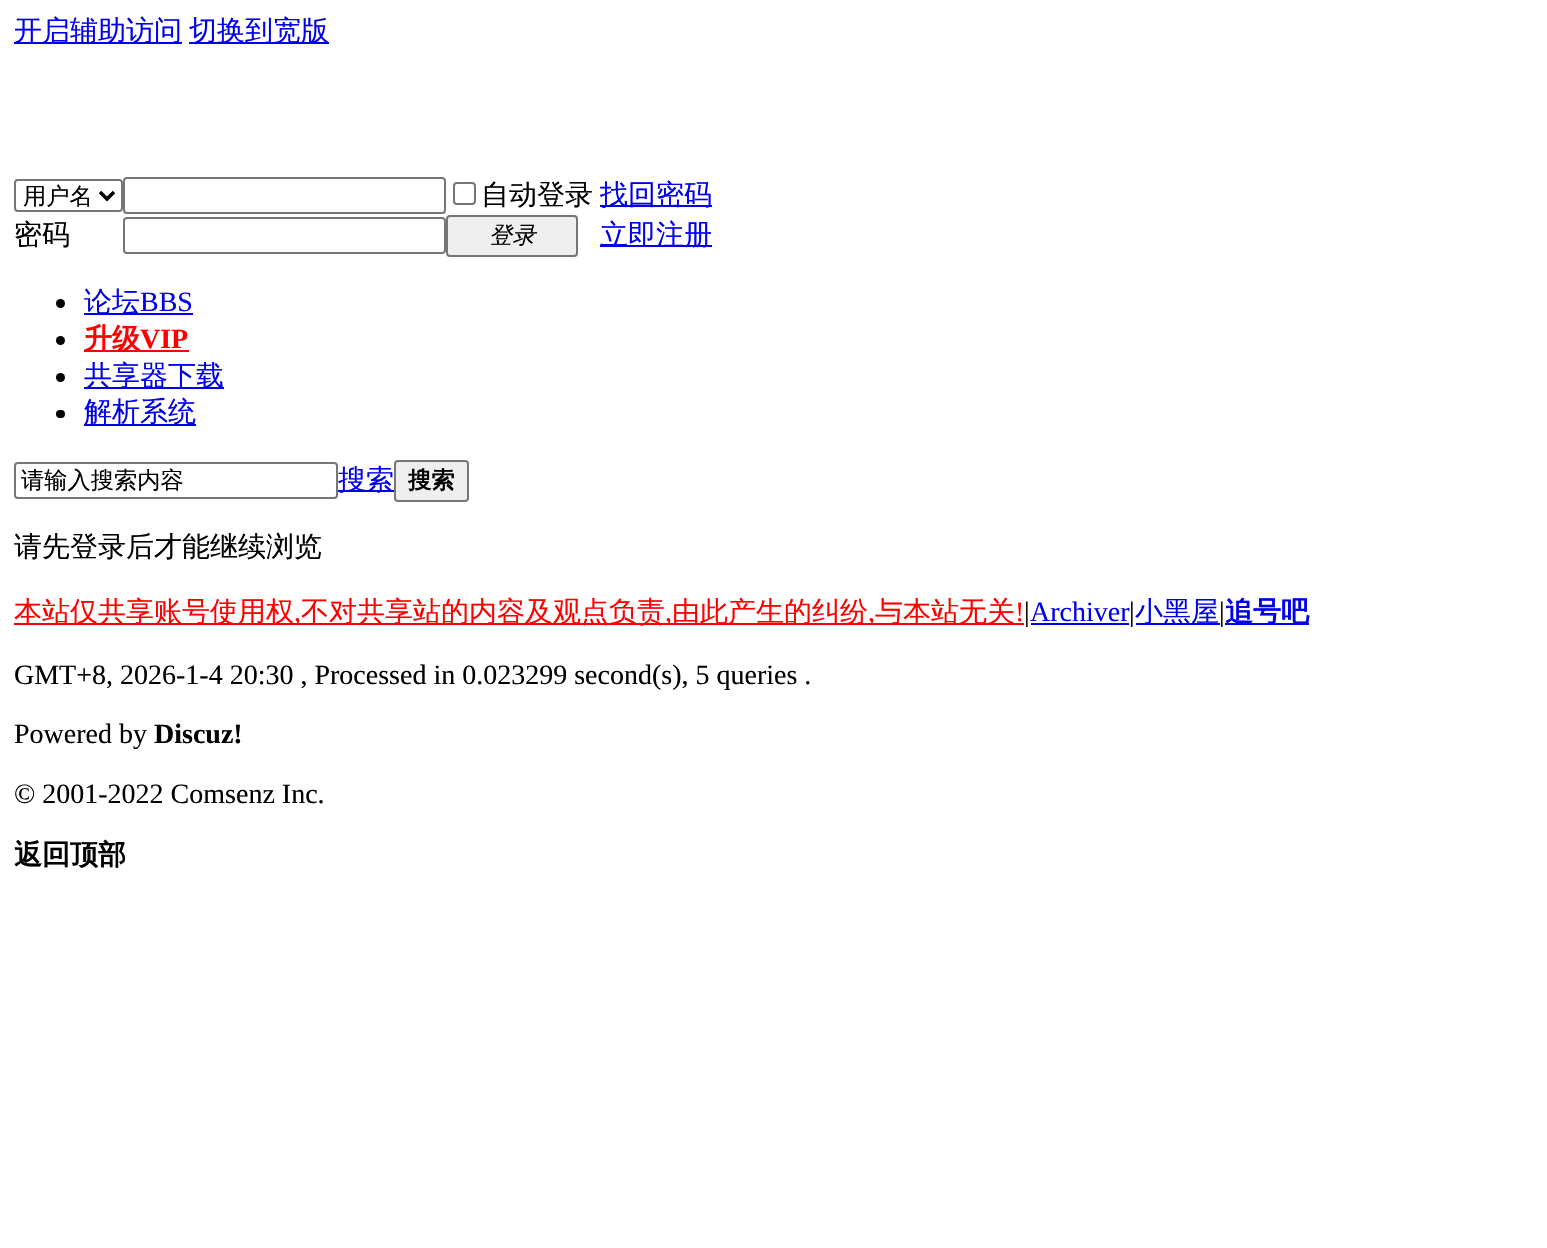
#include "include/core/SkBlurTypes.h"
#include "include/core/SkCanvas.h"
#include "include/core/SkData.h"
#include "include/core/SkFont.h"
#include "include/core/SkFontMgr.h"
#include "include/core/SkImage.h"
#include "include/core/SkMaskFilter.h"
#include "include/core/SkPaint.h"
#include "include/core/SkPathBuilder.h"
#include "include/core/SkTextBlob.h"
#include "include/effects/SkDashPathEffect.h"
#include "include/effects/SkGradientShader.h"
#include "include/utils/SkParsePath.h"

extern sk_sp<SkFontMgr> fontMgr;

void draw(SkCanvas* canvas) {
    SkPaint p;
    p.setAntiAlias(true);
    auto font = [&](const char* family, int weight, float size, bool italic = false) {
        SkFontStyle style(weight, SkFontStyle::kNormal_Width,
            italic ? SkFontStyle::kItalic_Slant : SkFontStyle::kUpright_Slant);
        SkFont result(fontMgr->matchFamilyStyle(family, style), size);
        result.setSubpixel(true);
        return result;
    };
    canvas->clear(0xFFFFFFFF);
    p.setColor(0xFF0000EE);
    canvas->drawRect(SkRect::MakeLTRB(14, 42, 182, 44), p);
    auto font1 = font("WenQuanYi Zen Hei", 500, 28);
    canvas->drawString("开启辅助访问", 14, 40, font1, p);
    canvas->drawRect(SkRect::MakeLTRB(189, 42, 329, 44), p);
    canvas->drawString("切换到宽版", 189, 40, font1, p);
    p.setStyle(SkPaint::kStroke_Style);
    p.setStrokeWidth(2);
    p.setColor(0xFF767676);
    canvas->drawRoundRect(SkRect::MakeLTRB(15, 180, 122, 211), 3, 3, p);
    p.setStrokeWidth(3.5f);
    p.setColor(0xFF000000);
    canvas->drawPath(SkPathBuilder().moveTo(100, 192).lineTo(107, 199).lineTo(114, 192).detach(), p);
    auto font2 = font("WenQuanYi Zen Hei", 500, 23.25f);
    p.setStyle(SkPaint::kFill_Style);
    canvas->drawString("用户名", 23, 204, font2, p);
    p.setStyle(SkPaint::kStroke_Style);
    p.setStrokeWidth(2);
    p.setColor(0xFF767676);
    canvas->drawRoundRect(SkRect::MakeLTRB(124, 178, 445, 213), 3, 3, p);
    canvas->drawRoundRect(SkRect::MakeLTRB(454, 183, 475, 204), 3, 3, p);
    p.setStyle(SkPaint::kFill_Style);
    p.setColor(0xFF000000);
    canvas->drawString("自动登录", 481, 204, font1, p);
    p.setColor(0xFF0000EE);
    canvas->drawRect(SkRect::MakeLTRB(600, 205, 712, 207), p);
    canvas->drawString("找回密码", 600, 204, font1, p);
    p.setColor(0xFF000000);
    canvas->drawString("密码", 14, 244, font1, p);
    p.setStyle(SkPaint::kStroke_Style);
    p.setColor(0xFF767676);
    canvas->drawRoundRect(SkRect::MakeLTRB(124, 218, 445, 253), 3, 3, p);
    p.setStyle(SkPaint::kFill_Style);
    p.setColor(0xFFEFEFEF);
    canvas->drawRoundRect(SkRect::MakeLTRB(447, 216, 577, 256), 3, 3, p);
    p.setStyle(SkPaint::kStroke_Style);
    p.setColor(0xFF767676);
    canvas->drawRoundRect(SkRect::MakeLTRB(447, 216, 577, 256), 3, 3, p);
    auto font3 = font("WenQuanYi Zen Hei", 500, 23.25f, true);
    p.setStyle(SkPaint::kFill_Style);
    p.setColor(0xFF000000);
    canvas->drawString("登录", 489, 243, font3, p);
    p.setColor(0xFF0000EE);
    canvas->drawRect(SkRect::MakeLTRB(600, 245, 712, 247), p);
    canvas->drawString("立即注册", 600, 244, font1, p);
    p.setColor(0xFF000000);
    canvas->drawCircle(60.5f, 303.5f, 4.5f, p);
    p.setColor(0xFF0000EE);
    canvas->drawRect(SkRect::MakeLTRB(84, 313, 193, 315), p);
    canvas->drawString("论坛", 84, 311, font1, p);
    auto font4 = font("Liberation Serif", 400, 28);
    canvas->drawString("BBS", 140, 311, font4, p);
    p.setColor(0xFF000000);
    canvas->drawCircle(60.5f, 340.5f, 4.5f, p);
    p.setColor(0xFFFF0000);
    canvas->drawRect(SkRect::MakeLTRB(84, 350, 189, 352), p);
    auto font5 = font("WenQuanYi Zen Hei", 700, 28);
    canvas->drawString("升级", 84, 348, font5, p);
    auto font6 = font("Liberation Serif", 700, 28);
    canvas->drawString("VIP", 140, 348, font6, p);
    p.setColor(0xFF000000);
    canvas->drawCircle(60.5f, 377.5f, 4.5f, p);
    p.setColor(0xFF0000EE);
    canvas->drawRect(SkRect::MakeLTRB(84, 387, 224, 389), p);
    canvas->drawString("共享器下载", 84, 385, font1, p);
    p.setColor(0xFF000000);
    canvas->drawRoundRect(SkRect::MakeLTRB(56, 410, 65, 418), 4, 4, p);
    p.setColor(0xFF0000EE);
    canvas->drawRect(SkRect::MakeLTRB(84, 424, 196, 426), p);
    canvas->drawString("解析系统", 84, 421, font1, p);
    p.setStyle(SkPaint::kStroke_Style);
    p.setColor(0xFF767676);
    canvas->drawRoundRect(SkRect::MakeLTRB(15, 463, 337, 498), 3, 3, p);
    p.setStyle(SkPaint::kFill_Style);
    p.setColor(0xFF000000);
    canvas->drawString("请输入搜索内容", 21, 488, font2, p);
    p.setColor(0xFF0000EE);
    canvas->drawRect(SkRect::MakeLTRB(338, 490, 394, 492), p);
    canvas->drawString("搜索", 338, 489, font1, p);
    p.setColor(0xFFEFEFEF);
    canvas->drawRoundRect(SkRect::MakeLTRB(395, 461, 468, 501), 3, 3, p);
    p.setStyle(SkPaint::kStroke_Style);
    p.setColor(0xFF767676);
    canvas->drawRoundRect(SkRect::MakeLTRB(395, 461, 468, 501), 3, 3, p);
    auto font7 = font("WenQuanYi Zen Hei", 700, 23.25f);
    p.setStyle(SkPaint::kFill_Style);
    p.setColor(0xFF000000);
    canvas->drawString("搜索", 408, 488, font7, p);
    canvas->drawString("请先登录后才能继续浏览", 14, 556, font1, p);
    p.setColor(0xFFFF0000);
    canvas->drawRect(SkRect::MakeLTRB(14, 623, 1024, 625), p);
    canvas->drawString("本站仅共享账号使用权", 14, 621, font1, p);
    canvas->drawString(",", 294, 621, font4, p);
    canvas->drawString("不对共享站的内容及观点负责", 301, 621, font1, p);
    canvas->drawString(",", 665, 621, font4, p);
    canvas->drawString("由此产生的纠纷", 672, 621, font1, p);
    canvas->drawString(",", 868, 621, font4, p);
    canvas->drawString("与本站无关", 875, 621, font1, p);
    canvas->drawString("!", 1015, 621, font4, p);
    p.setColor(0xFF000000);
    canvas->drawString("|", 1024, 621, font4, p);
    p.setColor(0xFF0000EE);
    canvas->drawString("Archiver", 1030, 621, font4, p);
    canvas->drawRect(SkRect::MakeLTRB(1031, 623, 1129, 625), p);
    p.setColor(0xFF000000);
    canvas->drawString("|", 1129, 621, font4, p);
    p.setColor(0xFF0000EE);
    canvas->drawRect(SkRect::MakeLTRB(1136, 623, 1220, 625), p);
    canvas->drawString("小黑屋", 1135, 621, font1, p);
    p.setColor(0xFF000000);
    canvas->drawString("|", 1219, 621, font4, p);
    p.setColor(0xFF0000EE);
    canvas->drawRect(SkRect::MakeLTRB(1225, 623, 1309, 625), p);
    canvas->drawString("追号吧", 1225, 621, font5, p);
    p.setColor(0xFF000000);
    canvas->drawString("GMT+8, 2026-1-4 20:30 , Processed in 0.023299 second(s), 5 queries .", 14, 684, font4, p);
    canvas->drawString("Powered by", 14, 743, font4, p);
    canvas->drawString("Discuz!", 154, 743, font6, p);
    canvas->drawString("© 2001-2022 Comsenz Inc.", 14, 803, font4, p);
    canvas->drawString("返回顶部", 14, 864, font5, p);
}
